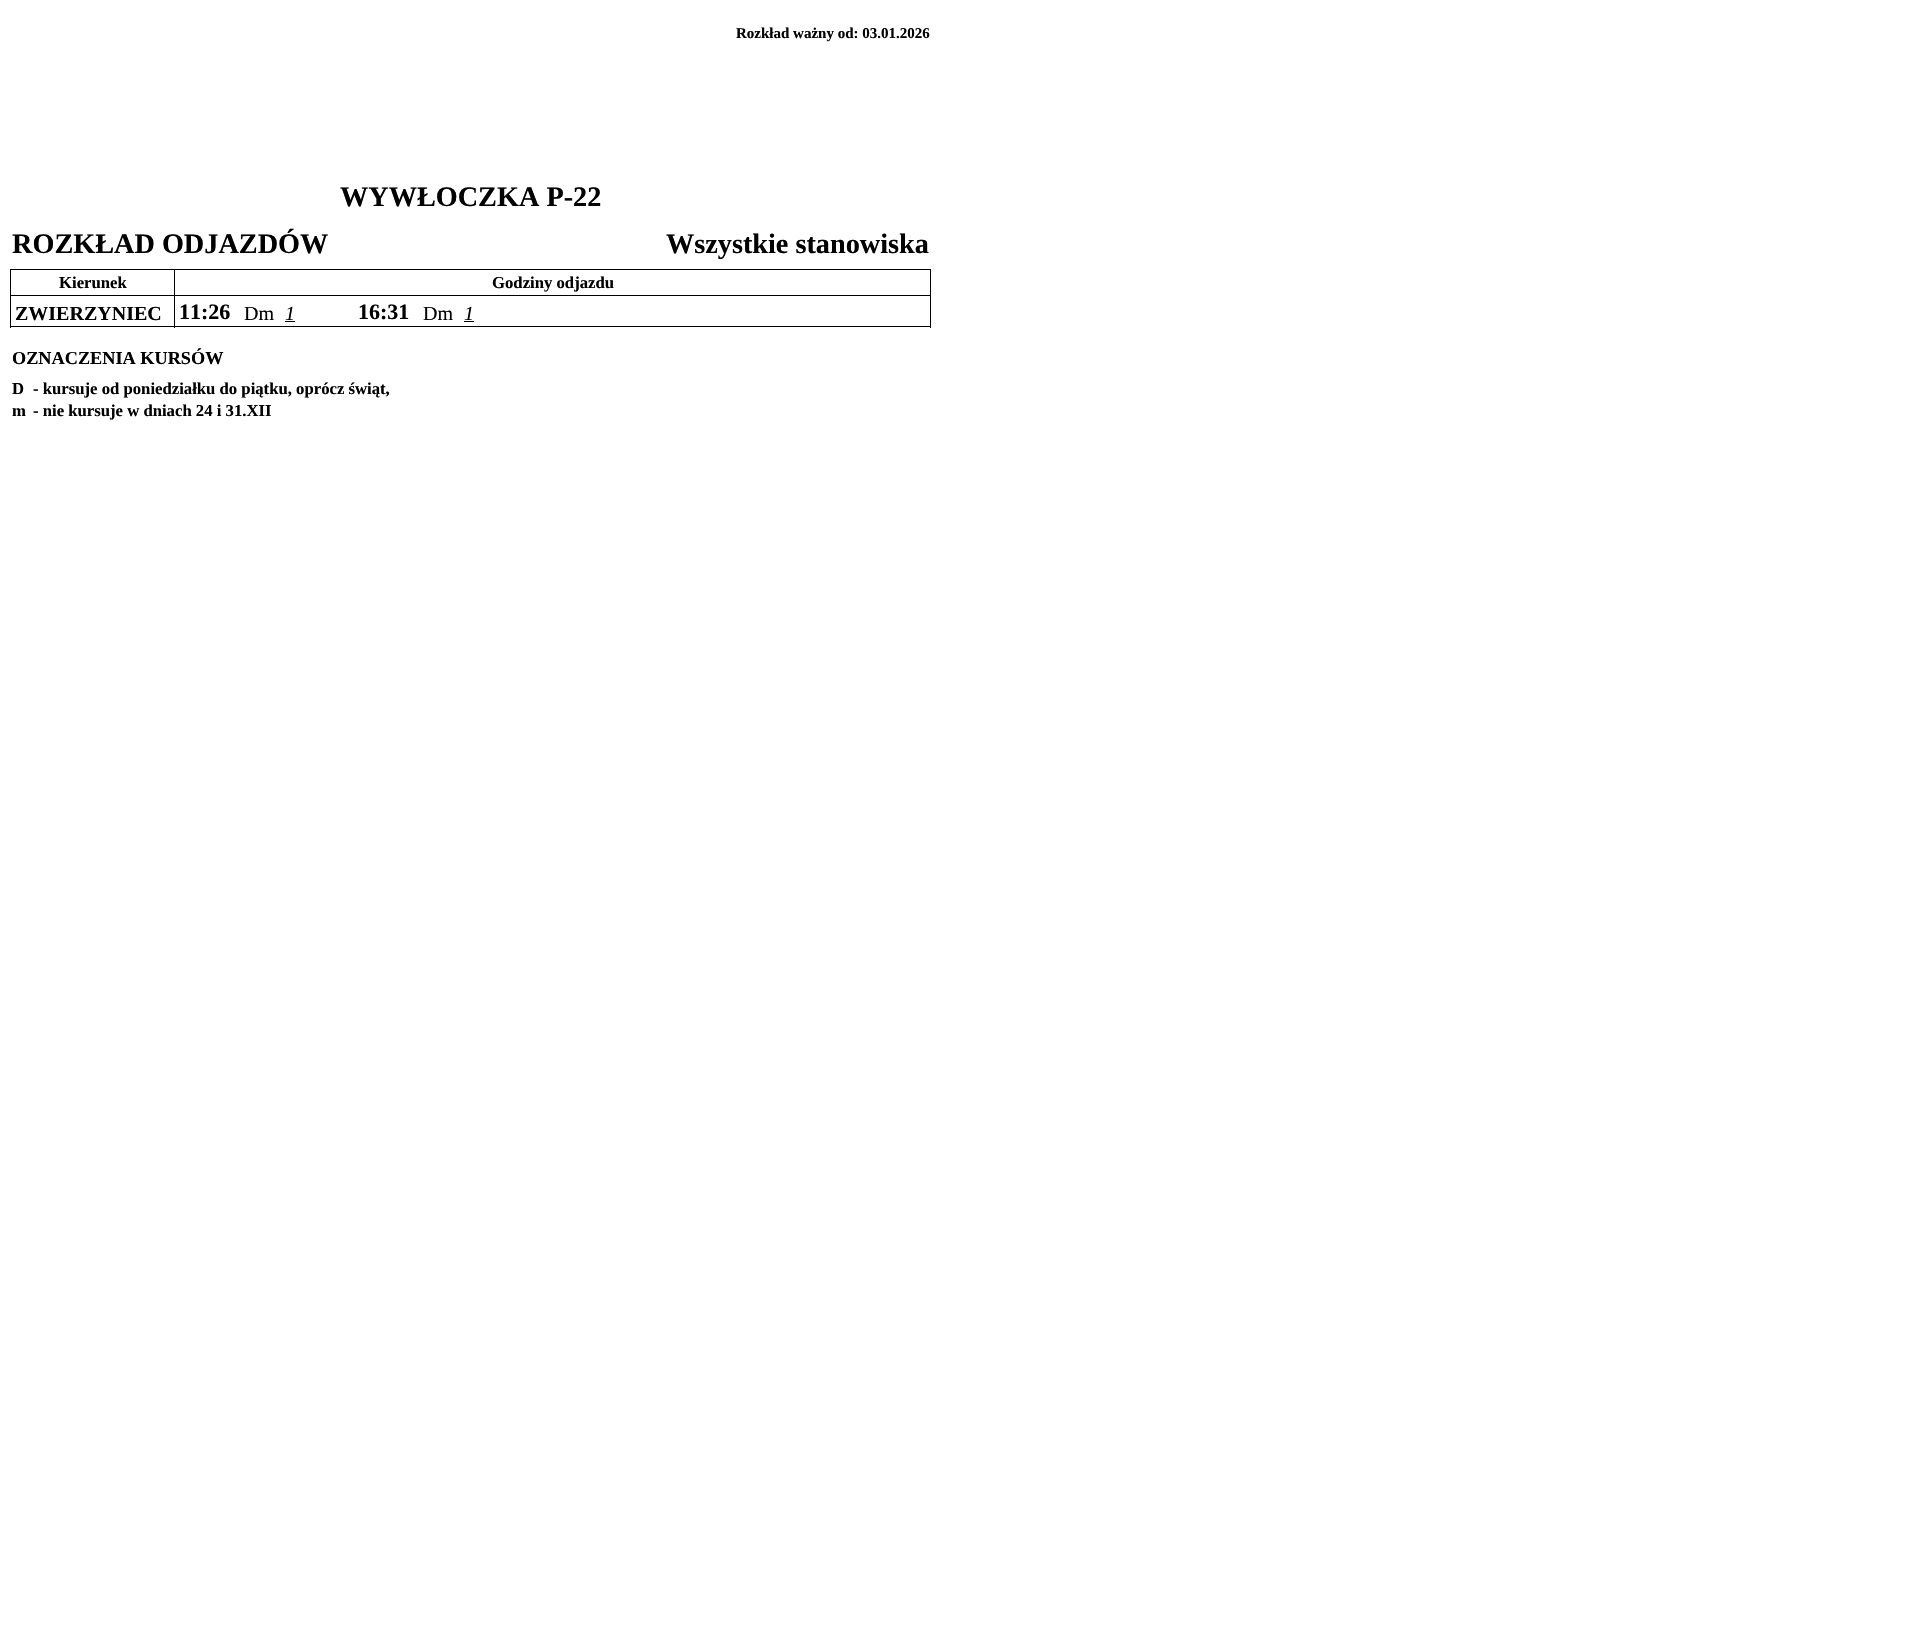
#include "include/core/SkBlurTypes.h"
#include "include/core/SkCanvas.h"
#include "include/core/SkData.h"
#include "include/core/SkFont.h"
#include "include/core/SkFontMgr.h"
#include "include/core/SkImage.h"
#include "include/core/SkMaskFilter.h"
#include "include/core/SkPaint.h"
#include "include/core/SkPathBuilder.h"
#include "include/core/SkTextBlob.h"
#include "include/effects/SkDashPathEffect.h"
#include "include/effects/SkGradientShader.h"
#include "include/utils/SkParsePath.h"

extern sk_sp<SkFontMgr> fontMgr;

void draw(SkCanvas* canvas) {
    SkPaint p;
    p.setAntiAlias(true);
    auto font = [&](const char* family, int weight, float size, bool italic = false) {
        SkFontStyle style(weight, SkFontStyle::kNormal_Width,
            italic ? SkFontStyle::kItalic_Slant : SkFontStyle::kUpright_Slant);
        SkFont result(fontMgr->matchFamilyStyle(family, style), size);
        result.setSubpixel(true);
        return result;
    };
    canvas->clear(0xFFFFFFFF);
    auto font1 = font("Liberation Serif", 700, 15);
    p.setColor(0xFF000000);
    canvas->drawString("Rozkład ważny od: 03.01.2026", 736, 38, font1, p);
    auto font2 = font("Liberation Serif", 700, 28.25f);
    {
        const struct { const char* s; float x, y; } items[] = {
            {"WYWŁOCZKA P-22", 340, 206},
            {"ROZKŁAD ODJAZDÓW", 12, 253},
            {"Wszystkie stanowiska", 666, 253},
        };
        for (auto [s, x, y] : items) {
            canvas->drawString(s, x, y, font2, p);
        }
    }
    {
        const struct { float l, t, r, b; SkColor color; } items[] = {
            {174, 269, 931, 270, 0xFF000000},
            {174, 295, 931, 296, 0xFF000000},
            {930, 295, 931, 328, 0xFF000000},
            {174, 326, 931, 327, 0xFF000000},
            {174, 295, 175, 328, 0xFF000000},
            {10, 295, 175, 296, 0xFF000000},
            {174, 269, 175, 296, 0xFF000000},
            {10, 269, 175, 270, 0xFF000000},
            {10, 326, 175, 327, 0xFF000000},
            {10, 295, 11, 328, 0xFF000000},
            {10, 269, 11, 296, 0xFF000000},
        };
        for (auto [l, t, r, b, color] : items) {
            p.setColor(color);
            canvas->drawRect(SkRect::MakeLTRB(l, t, r, b), p);
        }
    }
    auto font3 = font("Liberation Serif", 700, 16.7f);
    canvas->drawString("Kierunek", 59, 288, font3, p);
    canvas->drawRect(SkRect::MakeLTRB(930, 269, 931, 296), p);
    canvas->drawString("Godziny odjazdu", 492, 288, font3, p);
    auto font4 = font("Liberation Serif", 700, 20);
    canvas->drawString("ZWIERZYNIEC", 15, 320, font4, p);
    auto font5 = font("Liberation Serif", 700, 22);
    canvas->drawString("11:26", 179, 319, font5, p);
    auto font6 = font("Liberation Serif", 400, 20);
    canvas->drawString("Dm", 244, 320, font6, p);
    auto font7 = font("Liberation Serif", 400, 20, true);
    canvas->drawString("1", 285, 320, font7, p);
    canvas->drawRect(SkRect::MakeLTRB(285, 321, 295, 322), p);
    canvas->drawString("16:31", 358, 319, font5, p);
    canvas->drawString("Dm", 423, 320, font6, p);
    canvas->drawString("1", 464, 320, font7, p);
    canvas->drawRect(SkRect::MakeLTRB(464, 321, 474, 322), p);
    auto font8 = font("Liberation Serif", 700, 18.25f);
    canvas->drawString("OZNACZENIA KURSÓW", 12, 364, font8, p);
    {
        const struct { const char* s; float x, y; } items[] = {
            {"D", 12, 394},
            {"- kursuje od poniedziałku do piątku, oprócz świąt,", 33, 394},
            {"m", 12, 416},
            {"- nie kursuje w dniach 24 i 31.XII", 33, 416},
        };
        for (auto [s, x, y] : items) {
            canvas->drawString(s, x, y, font3, p);
        }
    }
}
